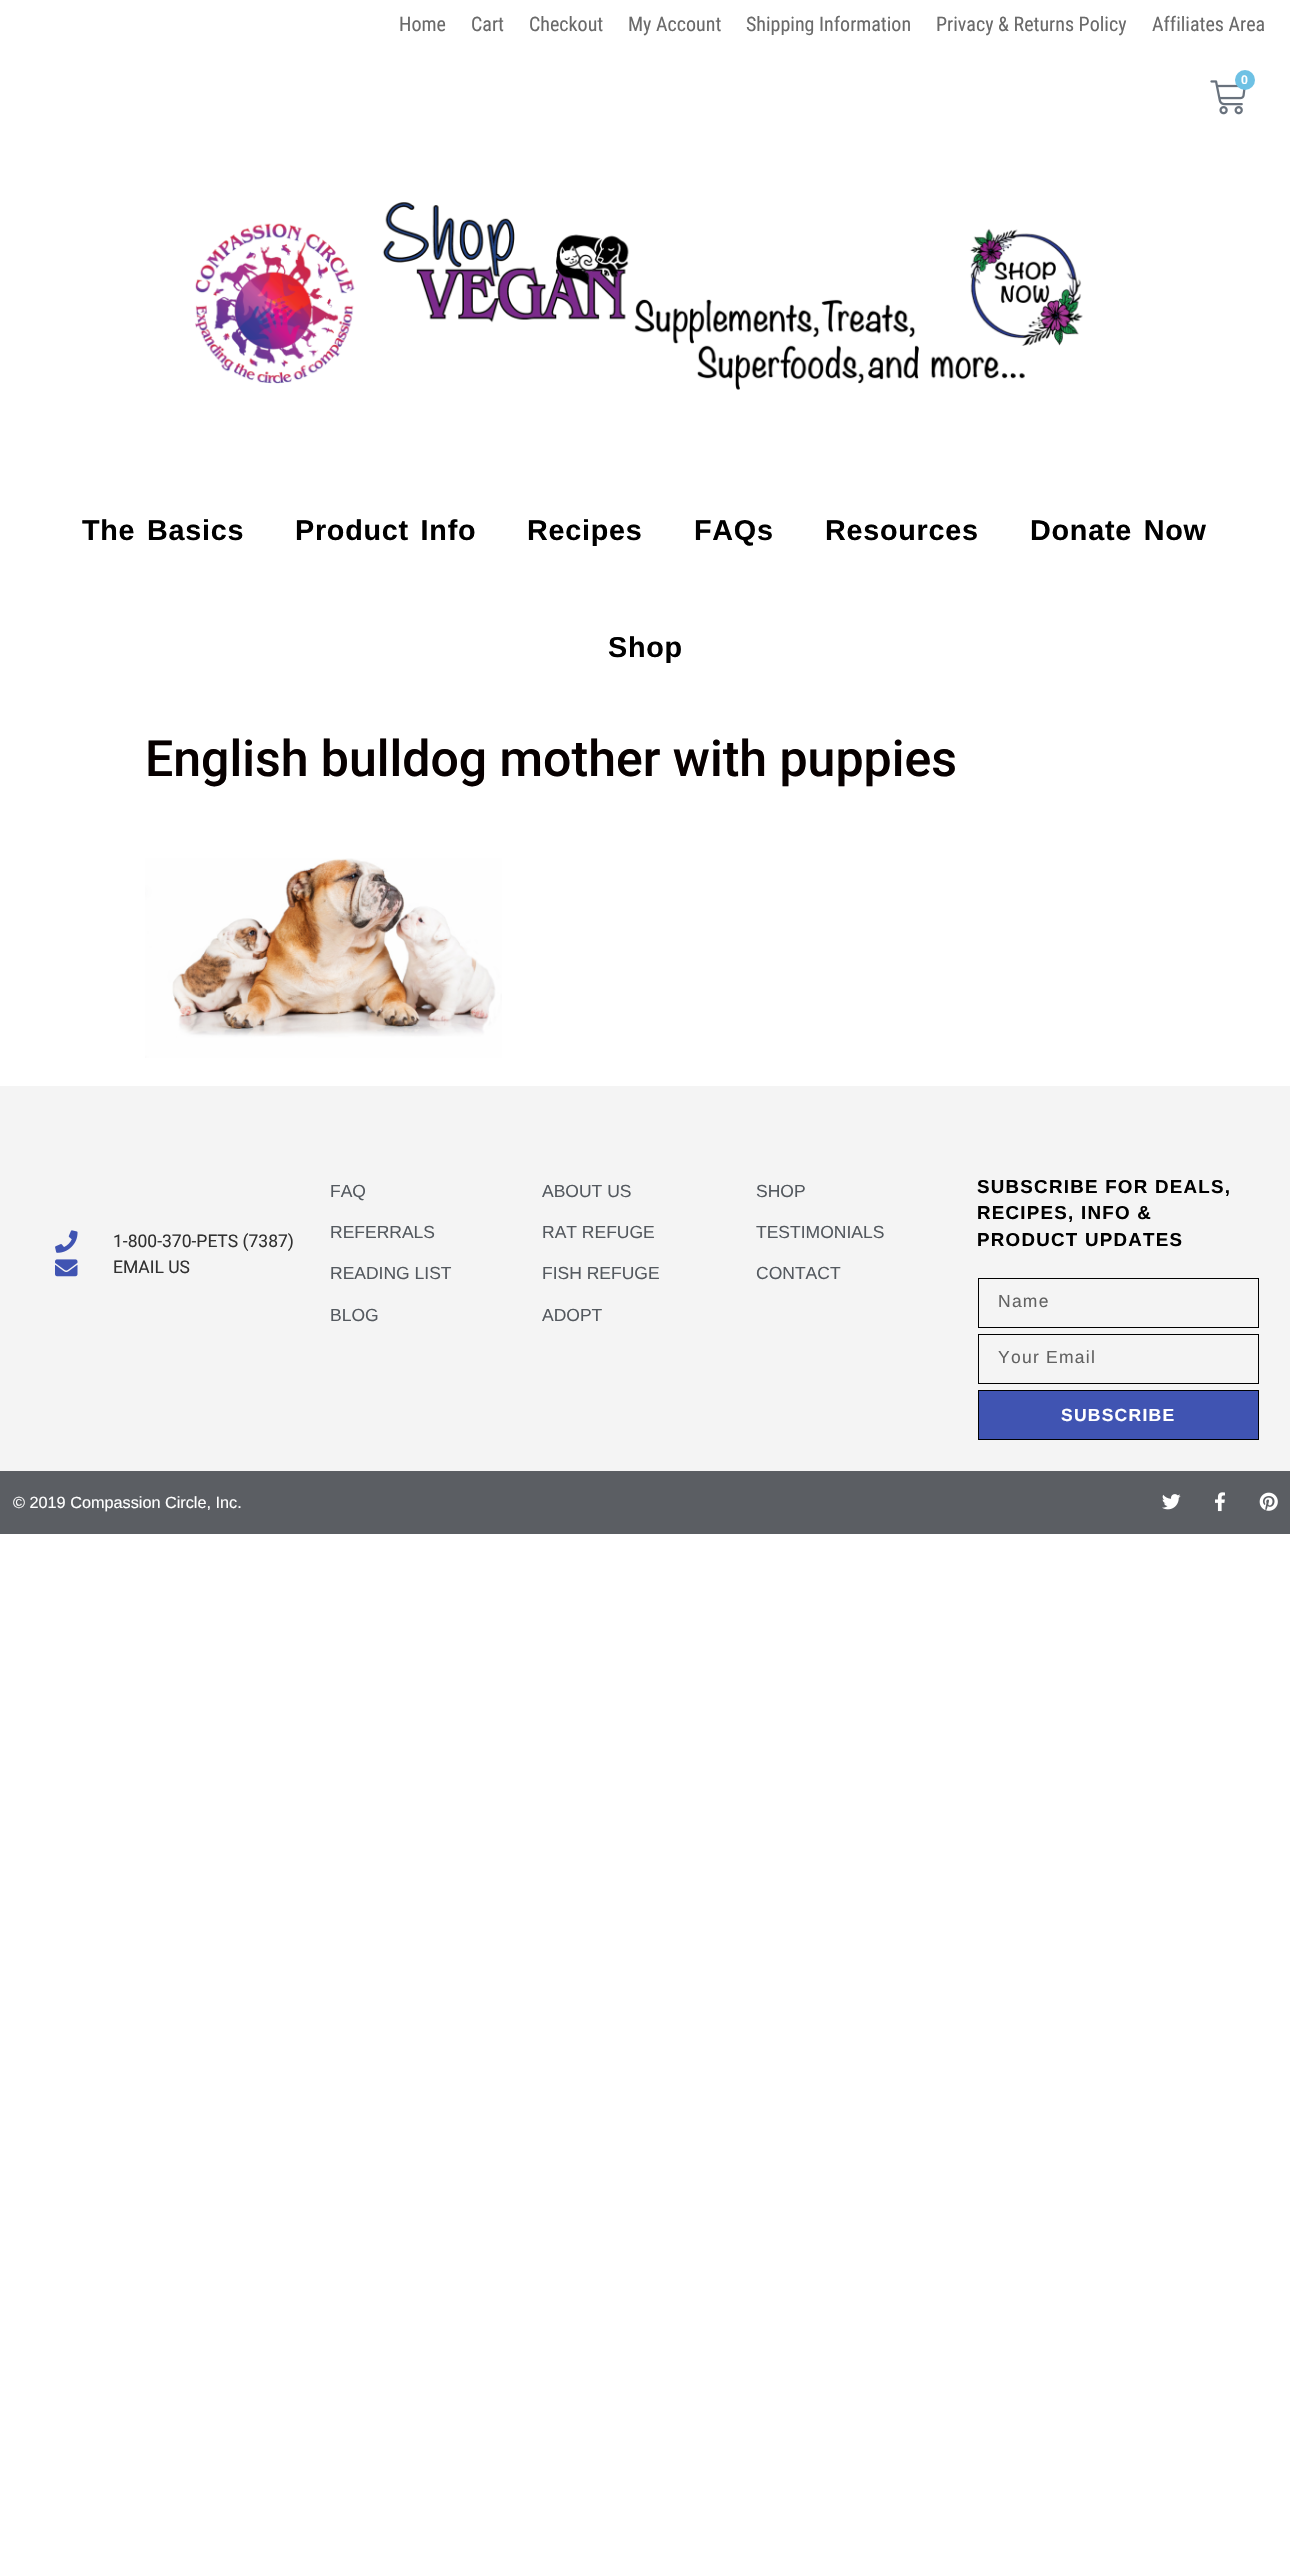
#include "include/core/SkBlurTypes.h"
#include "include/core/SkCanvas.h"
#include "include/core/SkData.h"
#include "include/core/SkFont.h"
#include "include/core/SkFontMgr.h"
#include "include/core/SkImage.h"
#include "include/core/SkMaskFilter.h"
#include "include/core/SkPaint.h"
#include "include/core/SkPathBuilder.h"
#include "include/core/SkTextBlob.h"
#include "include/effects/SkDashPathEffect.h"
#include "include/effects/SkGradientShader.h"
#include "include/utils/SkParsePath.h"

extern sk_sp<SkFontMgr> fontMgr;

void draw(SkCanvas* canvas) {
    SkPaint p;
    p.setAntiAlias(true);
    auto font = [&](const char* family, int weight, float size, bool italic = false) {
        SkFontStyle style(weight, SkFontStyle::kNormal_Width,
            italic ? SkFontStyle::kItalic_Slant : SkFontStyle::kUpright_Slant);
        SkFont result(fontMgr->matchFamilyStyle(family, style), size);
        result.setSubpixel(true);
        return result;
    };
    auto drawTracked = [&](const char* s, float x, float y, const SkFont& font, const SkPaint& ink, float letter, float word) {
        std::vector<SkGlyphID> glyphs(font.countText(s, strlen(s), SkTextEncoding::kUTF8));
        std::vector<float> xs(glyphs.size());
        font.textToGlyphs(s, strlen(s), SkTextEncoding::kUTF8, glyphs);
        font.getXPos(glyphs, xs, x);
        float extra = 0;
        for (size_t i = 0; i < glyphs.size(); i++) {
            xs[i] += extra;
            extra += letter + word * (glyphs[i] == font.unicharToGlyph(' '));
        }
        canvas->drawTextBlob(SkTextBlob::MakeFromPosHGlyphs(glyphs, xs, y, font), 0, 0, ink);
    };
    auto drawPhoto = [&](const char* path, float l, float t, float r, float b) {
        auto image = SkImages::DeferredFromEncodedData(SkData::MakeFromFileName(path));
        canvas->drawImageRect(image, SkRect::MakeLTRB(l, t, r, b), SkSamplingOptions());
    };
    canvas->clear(0xFFFFFFFF);
    auto font1 = font("Roboto Condensed", 400, 20);
    p.setColor(0xFF6A6A6A);
    {
        const struct { const char* s; float x, y; } items[] = {
            {"Home", 399, 31},
            {"Cart", 471, 31},
            {"Checkout", 529, 31},
            {"My Account", 628, 31},
            {"Shipping Information", 746, 31},
            {"Privacy & Returns Policy", 936, 31},
            {"Affiliates Area", 1152, 31},
        };
        for (auto [s, x, y] : items) {
            canvas->drawString(s, x, y, font1, p);
        }
    }
    drawPhoto("media/1.png", 1210, 80, 1246, 115);
    p.setColor(0xFF6EC1E4);
    canvas->drawCircle(1245, 80, 10, p);
    auto font2 = font("Roboto", 600, 12);
    p.setColor(0xFFFFFFFF);
    canvas->drawString("0", 1241, 84, font2, p);
    drawPhoto("media/2.png", 195, 202, 1083, 390);
    auto font3 = font("Liberation Sans", 700, 28.75f);
    p.setColor(0xFF000000);
    drawTracked("The Basics", 82, 540, font3, p, 0.75f, 3);
    drawTracked("Product Info", 295, 540, font3, p, 0.75f, 3);
    {
        const struct { const char* s; float x, y; } items[] = {
            {"Recipes", 527, 540},
            {"FAQs", 694, 540},
            {"Resources", 825, 540},
        };
        for (auto [s, x, y] : items) {
            drawTracked(s, x, y, font3, p, 0.75f, 0);
        }
    }
    drawTracked("Donate Now", 1030, 540, font3, p, 0.75f, 3);
    drawTracked("Shop", 608, 657, font3, p, 0.75f, 0);
    auto font4 = font("Roboto", 500, 50);
    p.setColor(0xFF070000);
    canvas->drawString("English bulldog mother with puppies", 145, 776, font4, p);
    drawPhoto("media/3.png", 145, 858, 502, 1058);
    p.setColor(0xFFF4F4F4);
    canvas->drawRect(SkRect::MakeLTRB(0, 1086, 1290, 1471), p);
    drawPhoto("media/4.png", 55, 1230, 78, 1253);
    auto font5 = font("Roboto", 400, 17.5f);
    p.setColor(0xFF313131);
    canvas->drawString("1-800-370-PETS (7387)", 113, 1247, font5, p);
    drawPhoto("media/5.png", 55, 1259, 78, 1277);
    canvas->drawString("EMAIL US", 113, 1273, font5, p);
    auto font6 = font("Liberation Sans", 400, 17.5f);
    p.setColor(0xFF54595F);
    {
        const struct { const char* s; float x, y; } items[] = {
            {"FAQ", 330, 1197},
            {"REFERRALS", 330, 1238},
            {"READING LIST", 330, 1279},
            {"BLOG", 330, 1321},
            {"ABOUT US", 542, 1197},
            {"RAT REFUGE", 542, 1238},
            {"FISH REFUGE", 542, 1279},
            {"ADOPT", 542, 1321},
            {"SHOP", 756, 1197},
            {"TESTIMONIALS", 756, 1238},
            {"CONTACT", 756, 1279},
        };
        for (auto [s, x, y] : items) {
            canvas->drawString(s, x, y, font6, p);
        }
    }
    auto font7 = font("Liberation Sans", 700, 18.75f);
    p.setColor(0xFF000000);
    {
        const struct { const char* s; float x, y; } items[] = {
            {"SUBSCRIBE FOR DEALS,", 977, 1193},
            {"RECIPES, INFO &", 977, 1219},
            {"PRODUCT UPDATES", 977, 1246},
        };
        for (auto [s, x, y] : items) {
            drawTracked(s, x, y, font7, p, 1.25f, 0);
        }
    }
    p.setStyle(SkPaint::kStroke_Style);
    p.setStrokeWidth(1);
    canvas->drawRect(SkRect::MakeLTRB(978.5f, 1278.5f, 1258.5f, 1327.5f), p);
    p.setStyle(SkPaint::kFill_Style);
    p.setColor(0xFF626262);
    drawTracked("Name", 998, 1307, font6, p, 1.25f, 0);
    p.setStyle(SkPaint::kStroke_Style);
    p.setColor(0xFF000000);
    canvas->drawRect(SkRect::MakeLTRB(978.5f, 1334.5f, 1258.5f, 1383.5f), p);
    p.setStyle(SkPaint::kFill_Style);
    p.setColor(0xFF626262);
    drawTracked("Your Email", 998, 1363, font6, p, 1.25f, 0);
    p.setColor(0xFF4054B2);
    canvas->drawRect(SkRect::MakeLTRB(978.5f, 1390.5f, 1258.5f, 1439.5f), p);
    p.setStyle(SkPaint::kStroke_Style);
    p.setColor(0xFF000000);
    canvas->drawRect(SkRect::MakeLTRB(978.5f, 1390.5f, 1258.5f, 1439.5f), p);
    auto font8 = font("Liberation Sans", 700, 17.5f);
    p.setStyle(SkPaint::kFill_Style);
    p.setColor(0xFFFFFFFF);
    drawTracked("SUBSCRIBE", 1061, 1421, font8, p, 1.25f, 0);
    p.setColor(0xFF5B5E63);
    canvas->drawRect(SkRect::MakeLTRB(0, 1471, 1290, 1534), p);
    auto font9 = font("Liberation Sans", 400, 16.25f);
    p.setColor(0xFFFFFFFF);
    canvas->drawString("© 2019 Compassion Circle, Inc.", 13, 1508, font9, p);
    drawPhoto("media/6.png", 1162, 1494, 1181, 1510);
    drawPhoto("media/7.png", 1215, 1492, 1225, 1512);
    drawPhoto("media/8.png", 1259, 1492, 1278, 1511);
}
